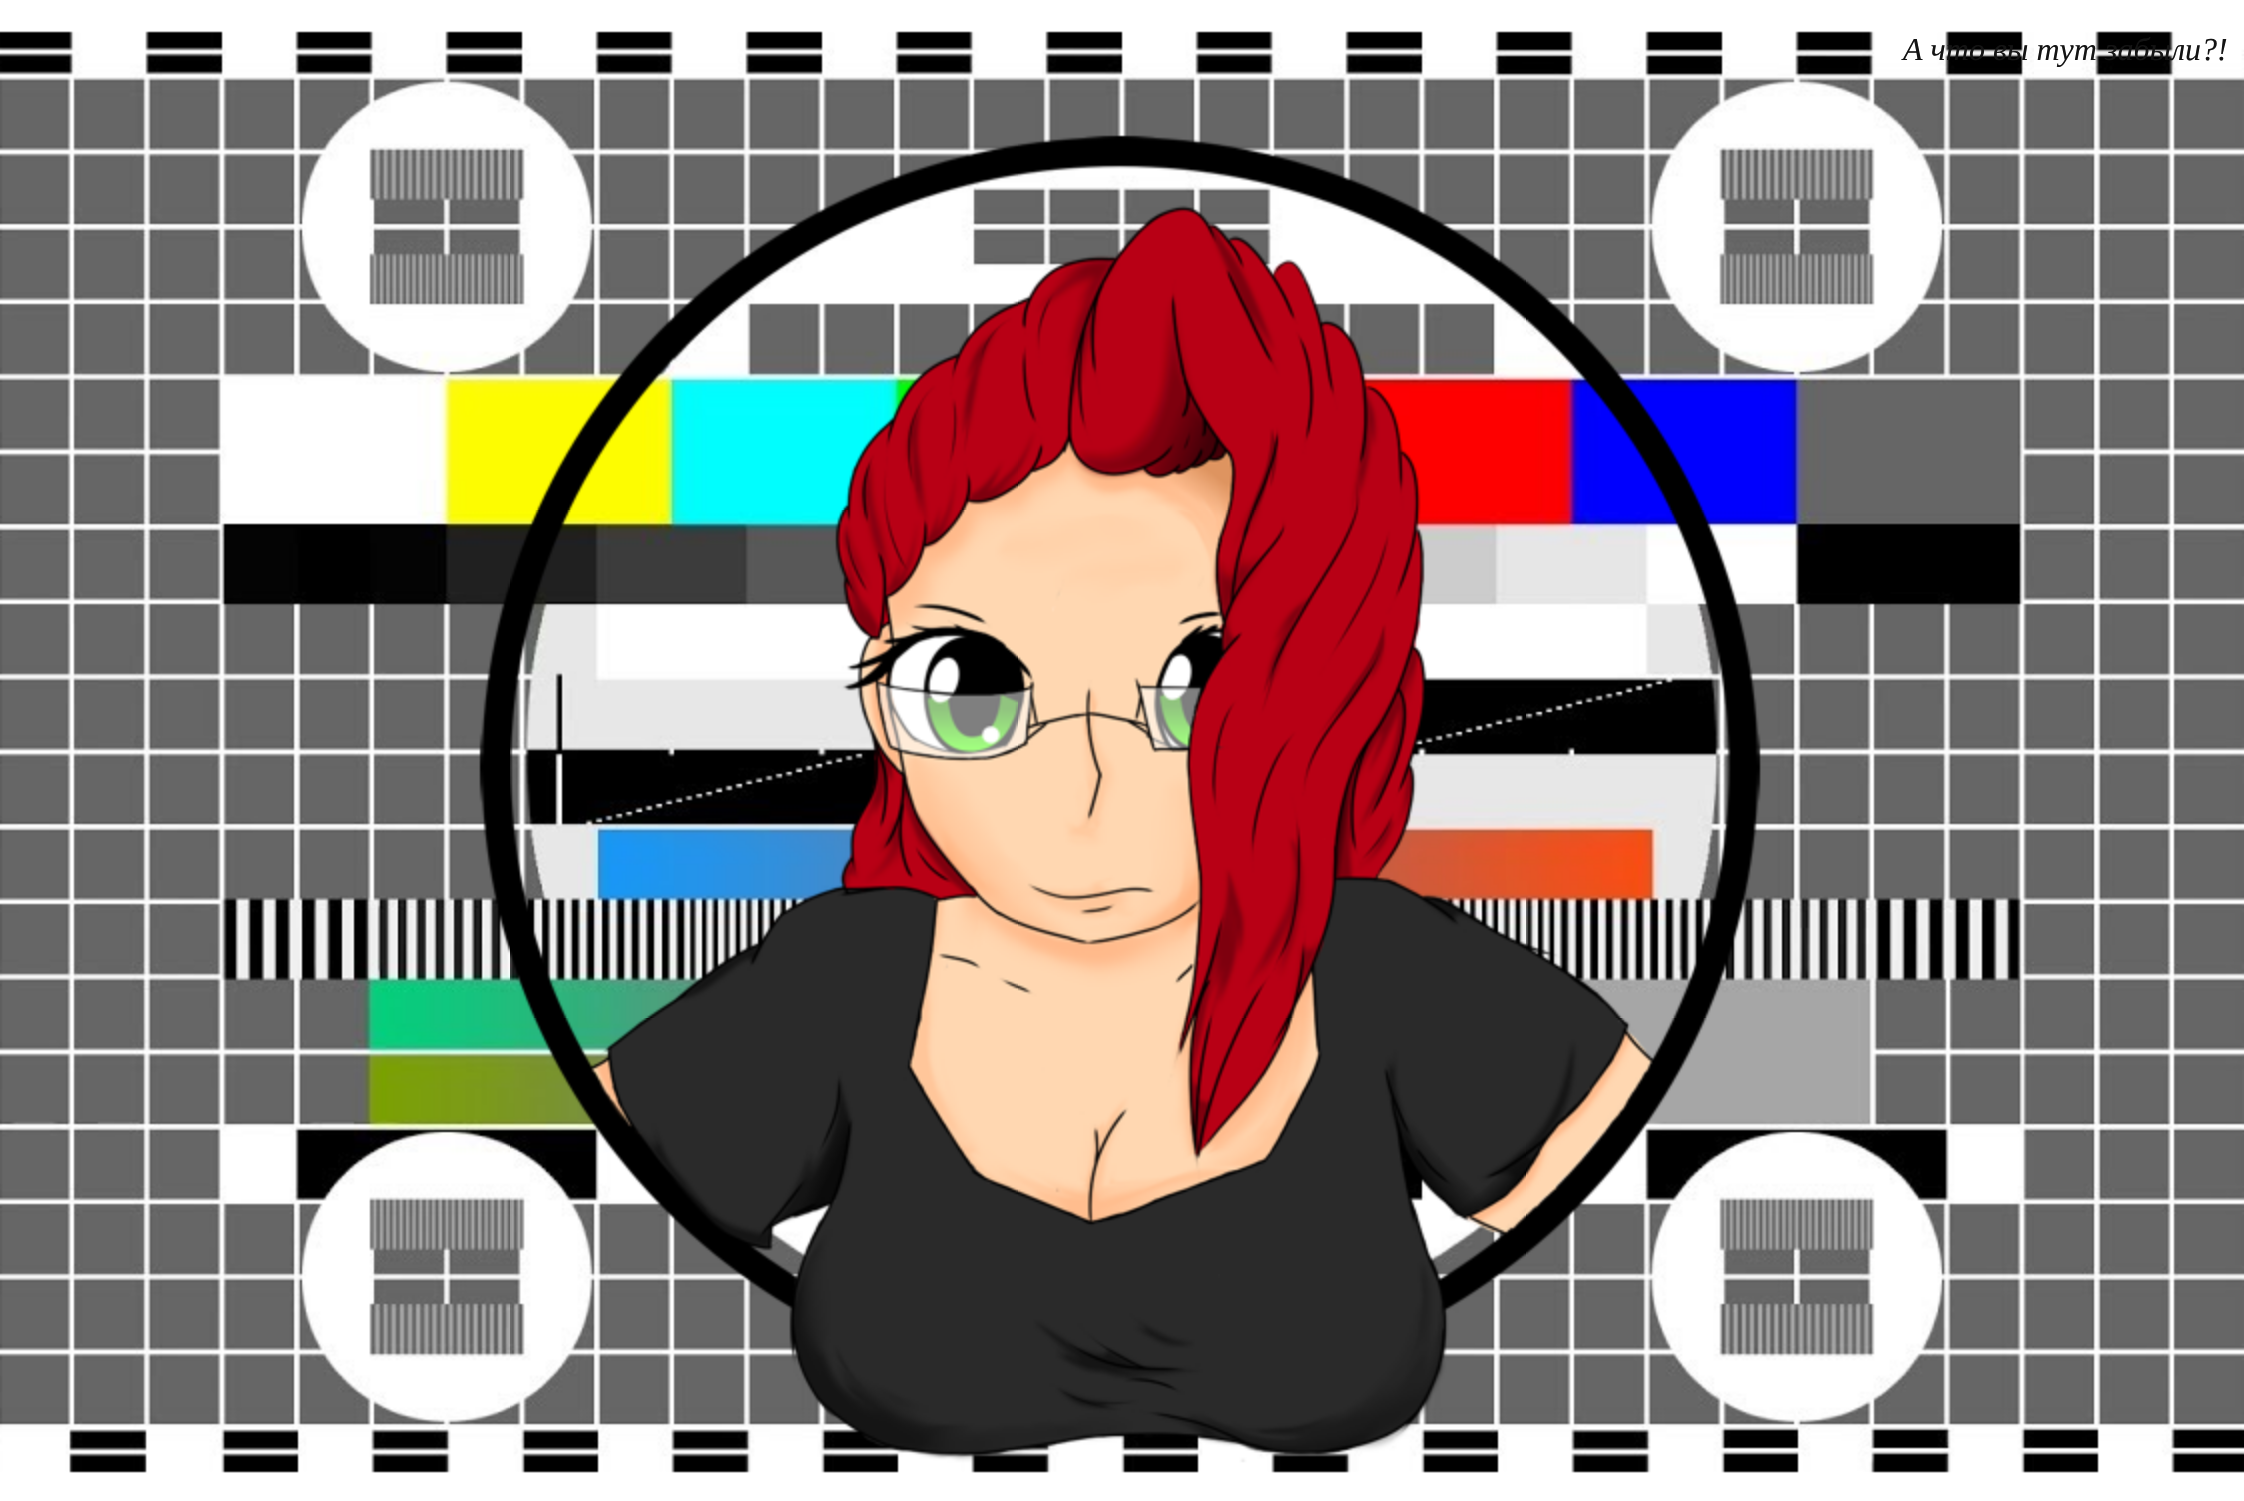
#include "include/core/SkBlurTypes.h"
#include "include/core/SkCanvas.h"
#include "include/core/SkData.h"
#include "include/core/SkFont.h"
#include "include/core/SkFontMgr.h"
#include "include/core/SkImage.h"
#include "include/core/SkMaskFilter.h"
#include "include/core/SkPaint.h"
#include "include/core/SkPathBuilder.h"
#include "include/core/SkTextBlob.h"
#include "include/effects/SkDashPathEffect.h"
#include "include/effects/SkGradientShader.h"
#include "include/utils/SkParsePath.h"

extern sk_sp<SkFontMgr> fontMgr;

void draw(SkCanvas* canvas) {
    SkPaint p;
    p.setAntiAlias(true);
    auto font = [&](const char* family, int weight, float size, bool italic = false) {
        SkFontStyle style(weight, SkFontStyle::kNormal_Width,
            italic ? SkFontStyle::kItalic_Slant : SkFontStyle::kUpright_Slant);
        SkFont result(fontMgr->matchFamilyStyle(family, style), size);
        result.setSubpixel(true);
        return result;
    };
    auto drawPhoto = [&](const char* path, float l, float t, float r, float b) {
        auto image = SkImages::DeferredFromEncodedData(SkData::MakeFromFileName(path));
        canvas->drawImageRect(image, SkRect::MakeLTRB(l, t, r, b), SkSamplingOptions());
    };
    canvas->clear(0xFFFFFFFF);
    drawPhoto("media/1.png", 0, 31, 2244, 1473);
    auto font1 = font("Liberation Serif", 400, 32, true);
    p.setColor(0xFF141414);
    canvas->drawString("А что вы тут забыли?!", 1903, 60, font1, p);
}
